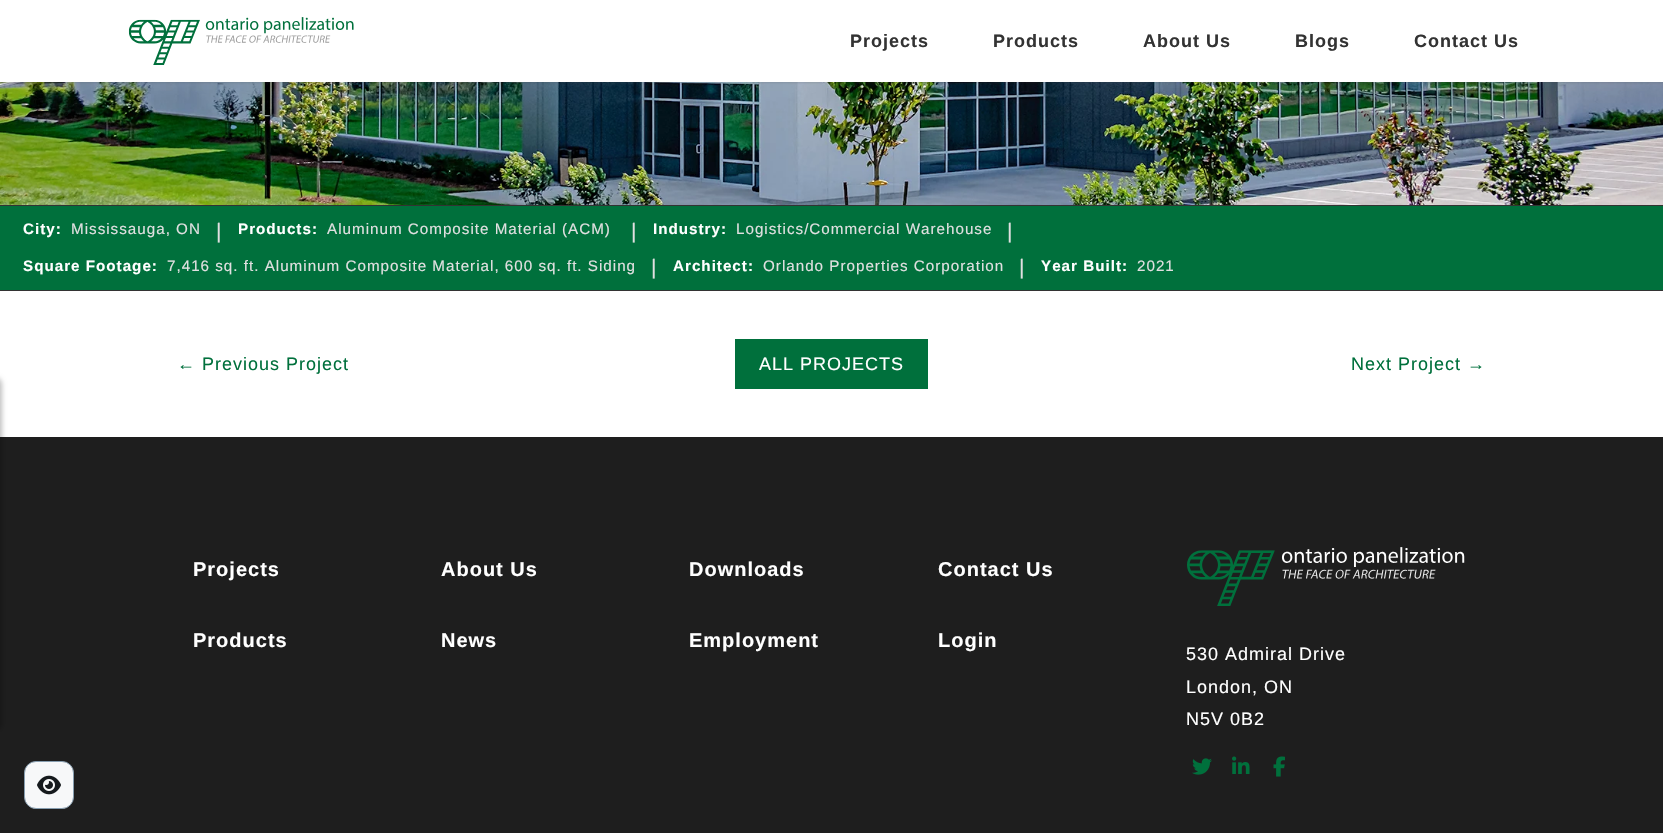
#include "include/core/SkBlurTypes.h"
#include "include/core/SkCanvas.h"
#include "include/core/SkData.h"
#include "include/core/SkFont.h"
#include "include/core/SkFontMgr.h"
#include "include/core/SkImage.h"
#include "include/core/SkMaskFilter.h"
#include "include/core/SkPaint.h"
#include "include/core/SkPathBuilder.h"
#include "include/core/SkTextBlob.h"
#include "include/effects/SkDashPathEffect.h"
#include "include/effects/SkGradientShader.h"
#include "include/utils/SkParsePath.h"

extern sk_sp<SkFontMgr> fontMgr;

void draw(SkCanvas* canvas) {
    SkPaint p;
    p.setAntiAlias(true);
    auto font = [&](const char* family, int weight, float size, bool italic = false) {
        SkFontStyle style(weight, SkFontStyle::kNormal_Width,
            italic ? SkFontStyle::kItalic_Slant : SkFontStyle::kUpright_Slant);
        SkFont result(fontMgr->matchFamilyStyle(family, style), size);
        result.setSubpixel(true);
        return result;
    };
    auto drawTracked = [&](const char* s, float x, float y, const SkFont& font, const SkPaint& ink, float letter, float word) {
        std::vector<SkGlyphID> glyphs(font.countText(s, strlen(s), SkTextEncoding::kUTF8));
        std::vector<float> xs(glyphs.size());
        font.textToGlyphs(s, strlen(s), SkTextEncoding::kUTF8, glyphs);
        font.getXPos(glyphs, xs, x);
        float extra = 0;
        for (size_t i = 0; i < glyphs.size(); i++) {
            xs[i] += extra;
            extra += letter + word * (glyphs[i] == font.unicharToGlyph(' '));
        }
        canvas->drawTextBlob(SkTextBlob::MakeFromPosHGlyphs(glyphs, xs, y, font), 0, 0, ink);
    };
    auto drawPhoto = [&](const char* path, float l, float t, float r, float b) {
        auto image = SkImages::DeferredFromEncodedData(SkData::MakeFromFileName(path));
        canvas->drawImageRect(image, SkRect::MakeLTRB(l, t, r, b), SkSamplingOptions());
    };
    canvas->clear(0xFFFFFFFF);
    drawPhoto("media/2.png", 0, 82, 1663, 205);
    p.setColor(0x293E3E3E);
    p.setMaskFilter(SkMaskFilter::MakeBlur(kNormal_SkBlurStyle, 1));
    canvas->drawRect(SkRect::MakeLTRB(0, 1, 1663, 83), p);
    p.setMaskFilter(nullptr);
    p.setColor(0xFFFFFFFF);
    canvas->drawRect(SkRect::MakeLTRB(0, 0, 1663, 82), p);
    drawPhoto("media/1.png", 128, 17, 354, 65);
    auto font1 = font("Liberation Sans", 700, 18);
    p.setColor(0xFF333333);
    {
        const struct { const char* s; float x, y; } items[] = {
            {"Projects", 850, 47},
            {"Products", 993, 47},
            {"About Us", 1143, 47},
            {"Blogs", 1295, 47},
            {"Contact Us", 1414, 47},
        };
        for (auto [s, x, y] : items) {
            drawTracked(s, x, y, font1, p, 1, 0);
        }
    }
    {
        const struct { float l, t, r, b; SkColor color; } items[] = {
            {0, 206, 1663, 290, 0xFF00703C},
            {0, 205, 1663, 206, 0xFF333333},
            {0, 290, 1663, 291, 0xFF333333},
        };
        for (auto [l, t, r, b, color] : items) {
            p.setColor(color);
            canvas->drawRect(SkRect::MakeLTRB(l, t, r, b), p);
        }
    }
    auto font2 = font("Liberation Sans", 700, 15.2f);
    p.setColor(0xFFFFFFFF);
    drawTracked("City:", 23, 234, font2, p, 1, 0);
    auto font3 = font("Liberation Sans", 400, 15.2f);
    p.setColor(0xFFE0E0E0);
    drawTracked("Mississauga, ON", 71, 234, font3, p, 1, 0);
    auto font4 = font("Liberation Sans", 400, 21);
    drawTracked("|", 216, 238, font4, p, 1, 0);
    p.setColor(0xFFFFFFFF);
    drawTracked("Products:", 238, 234, font2, p, 1, 0);
    p.setColor(0xFFE0E0E0);
    drawTracked("Aluminum Composite Material (ACM)", 327, 234, font3, p, 1, 0);
    drawTracked("|", 631, 238, font4, p, 1, 0);
    p.setColor(0xFFFFFFFF);
    drawTracked("Industry:", 653, 234, font2, p, 1, 0);
    p.setColor(0xFFE0E0E0);
    drawTracked("Logistics/Commercial Warehouse", 736, 234, font3, p, 1, 0);
    drawTracked("|", 1007, 238, font4, p, 1, 0);
    p.setColor(0xFFFFFFFF);
    drawTracked("Square Footage:", 23, 271, font2, p, 1, 0);
    p.setColor(0xFFE0E0E0);
    drawTracked("7,416 sq. ft. Aluminum Composite Material, 600 sq. ft. Siding", 167, 271, font3, p, 1, 0);
    drawTracked("|", 651, 274, font4, p, 1, 0);
    p.setColor(0xFFFFFFFF);
    drawTracked("Architect:", 673, 271, font2, p, 1, 0);
    p.setColor(0xFFE0E0E0);
    drawTracked("Orlando Properties Corporation", 763, 271, font3, p, 1, 0);
    drawTracked("|", 1019, 274, font4, p, 1, 0);
    p.setColor(0xFFFFFFFF);
    drawTracked("Year Built:", 1041, 271, font2, p, 1, 0);
    p.setColor(0xFFE0E0E0);
    drawTracked("2021", 1137, 271, font3, p, 1, 0);
    auto font5 = font("Liberation Sans", 400, 18);
    p.setColor(0xFF00703C);
    drawTracked("← Previous Project", 177, 370, font5, p, 1, 0);
    canvas->drawRect(SkRect::MakeLTRB(735, 339, 928, 389), p);
    p.setColor(0xFFFFFFFF);
    drawTracked("ALL PROJECTS", 759, 370, font5, p, 1, 0);
    p.setColor(0xFF00703C);
    drawTracked("Next Project →", 1351, 370, font5, p, 1, 0);
    p.setColor(0xFF1E1E1E);
    canvas->drawRect(SkRect::MakeLTRB(0, 437, 1663, 833), p);
    auto font6 = font("Liberation Sans", 700, 20);
    p.setColor(0xFFFFFFFF);
    {
        const struct { const char* s; float x, y; } items[] = {
            {"Projects", 193, 576},
            {"About Us", 441, 576},
            {"Downloads", 689, 576},
            {"Contact Us", 938, 576},
            {"Products", 193, 647},
            {"News", 441, 647},
            {"Employment", 689, 647},
            {"Login", 938, 647},
        };
        for (auto [s, x, y] : items) {
            drawTracked(s, x, y, font6, p, 1, 0);
        }
    }
    drawPhoto("media/3.png", 1187, 547, 1465, 606);
    {
        const struct { const char* s; float x, y; } items[] = {
            {"530 Admiral Drive", 1186, 660},
            {"London, ON", 1186, 693},
            {"N5V 0B2", 1186, 725},
        };
        for (auto [s, x, y] : items) {
            drawTracked(s, x, y, font5, p, 1, 0);
        }
    }
    drawPhoto("media/4.png", 1192, 758, 1212, 775);
    drawPhoto("media/5.png", 1232, 756, 1250, 774);
    drawPhoto("media/6.png", 1273, 756, 1285, 777);
    p.setColor(0x40000000);
    p.setMaskFilter(SkMaskFilter::MakeBlur(kNormal_SkBlurStyle, 2.5f));
    canvas->drawRoundRect(SkRect::MakeLTRB(-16, 377, 2, 731), 8, 8, p);
    p.setMaskFilter(nullptr);
    p.setColor(0xFFF7F8F9);
    canvas->drawRoundRect(SkRect::MakeLTRB(24.5f, 761.5f, 73.5f, 808.5f), 11.5f, 11.5f, p);
    p.setStyle(SkPaint::kStroke_Style);
    p.setStrokeWidth(1);
    p.setColor(0xFF879EB0);
    canvas->drawRoundRect(SkRect::MakeLTRB(24.5f, 761.5f, 73.5f, 808.5f), 11.5f, 11.5f, p);
    drawPhoto("media/7.png", 37, 775, 61, 795);
}
